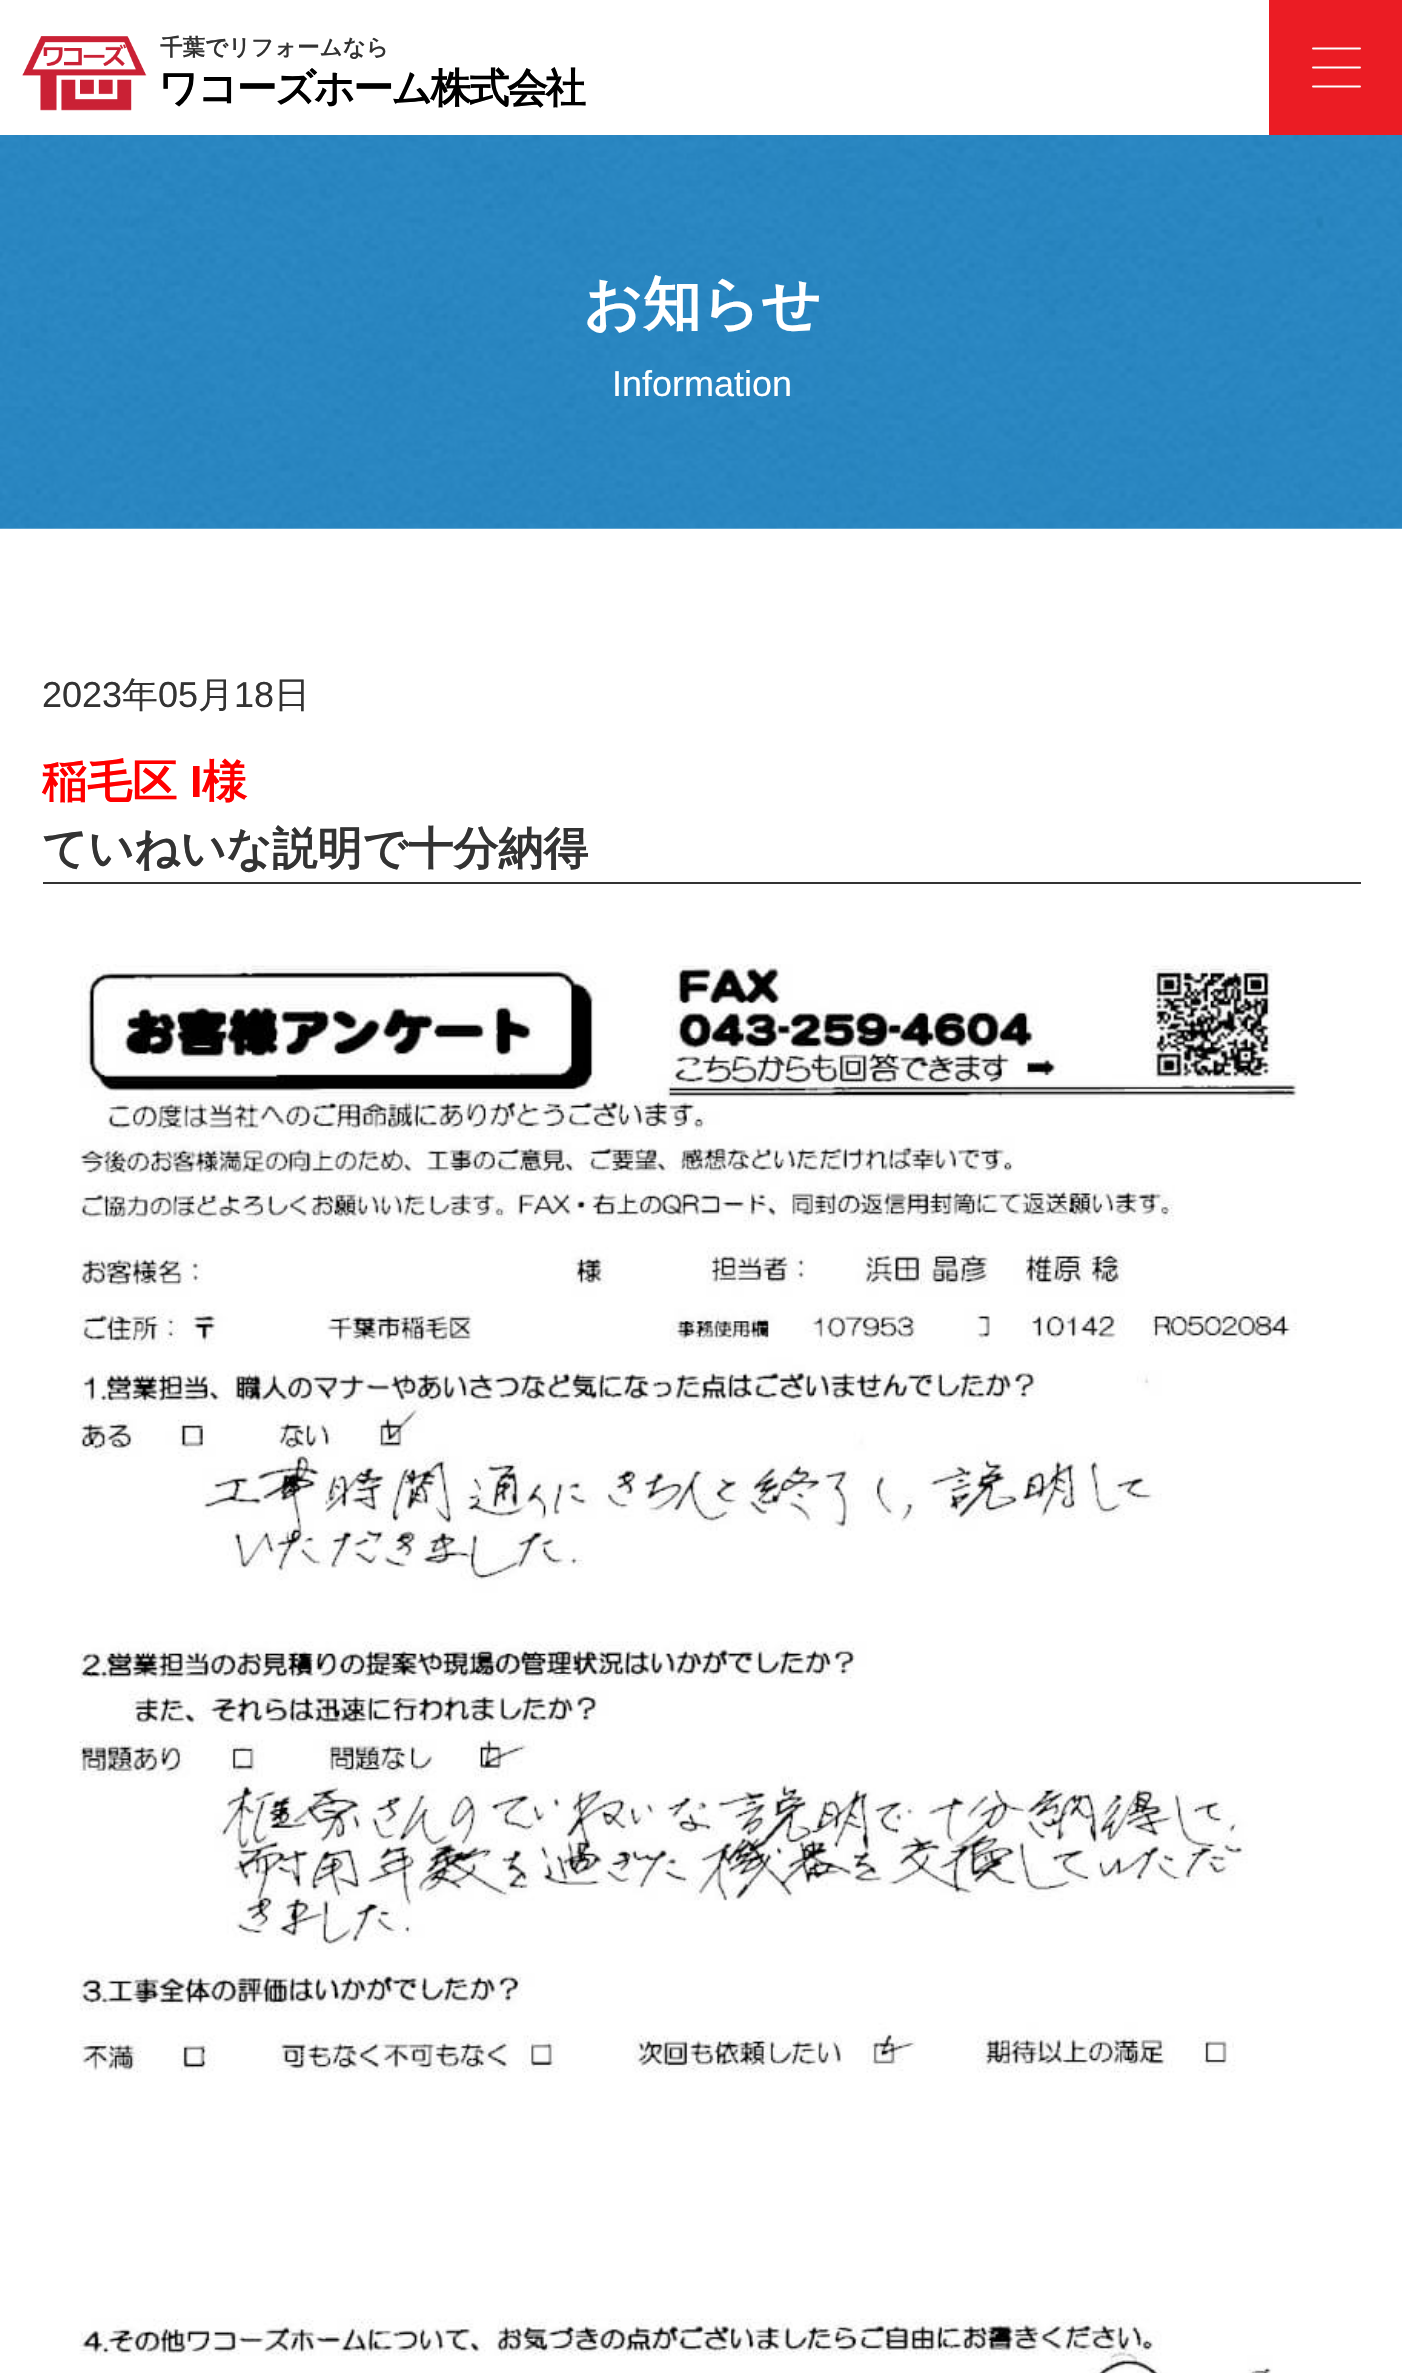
#include "include/core/SkBlurTypes.h"
#include "include/core/SkCanvas.h"
#include "include/core/SkData.h"
#include "include/core/SkFont.h"
#include "include/core/SkFontMgr.h"
#include "include/core/SkImage.h"
#include "include/core/SkMaskFilter.h"
#include "include/core/SkPaint.h"
#include "include/core/SkPathBuilder.h"
#include "include/core/SkTextBlob.h"
#include "include/effects/SkDashPathEffect.h"
#include "include/effects/SkGradientShader.h"
#include "include/utils/SkParsePath.h"

extern sk_sp<SkFontMgr> fontMgr;

void draw(SkCanvas* canvas) {
    SkPaint p;
    p.setAntiAlias(true);
    auto font = [&](const char* family, int weight, float size, bool italic = false) {
        SkFontStyle style(weight, SkFontStyle::kNormal_Width,
            italic ? SkFontStyle::kItalic_Slant : SkFontStyle::kUpright_Slant);
        SkFont result(fontMgr->matchFamilyStyle(family, style), size);
        result.setSubpixel(true);
        return result;
    };
    auto drawTracked = [&](const char* s, float x, float y, const SkFont& font, const SkPaint& ink, float letter, float word) {
        std::vector<SkGlyphID> glyphs(font.countText(s, strlen(s), SkTextEncoding::kUTF8));
        std::vector<float> xs(glyphs.size());
        font.textToGlyphs(s, strlen(s), SkTextEncoding::kUTF8, glyphs);
        font.getXPos(glyphs, xs, x);
        float extra = 0;
        for (size_t i = 0; i < glyphs.size(); i++) {
            xs[i] += extra;
            extra += letter + word * (glyphs[i] == font.unicharToGlyph(' '));
        }
        canvas->drawTextBlob(SkTextBlob::MakeFromPosHGlyphs(glyphs, xs, y, font), 0, 0, ink);
    };
    auto drawPhoto = [&](const char* path, float l, float t, float r, float b) {
        auto image = SkImages::DeferredFromEncodedData(SkData::MakeFromFileName(path));
        canvas->drawImageRect(image, SkRect::MakeLTRB(l, t, r, b), SkSamplingOptions());
    };
    canvas->clear(0xFFFFFFFF);
    drawPhoto("media/1.png", 22, 36, 147, 111);
    auto font1 = font("WenQuanYi Zen Hei", 700, 22.5f);
    p.setColor(0xFF333333);
    canvas->drawString("千葉でリフォームなら", 160, 55, font1, p);
    auto font2 = font("WenQuanYi Zen Hei", 700, 40.5f);
    p.setColor(0xFF000000);
    drawTracked("ワコーズホーム株式会社", 158, 102, font2, p, -2.25f, 0);
    p.setColor(0xFFEB1C24);
    canvas->drawRect(SkRect::MakeLTRB(1269, 0, 1402, 135), p);
    p.setStyle(SkPaint::kStroke_Style);
    p.setStrokeWidth(1.9f);
    p.setStrokeCap(SkPaint::kRound_Cap);
    p.setStrokeJoin(SkPaint::kRound_Join);
    p.setColor(0xFFFFFFFF);
    canvas->drawPath(SkPathBuilder().moveTo(1313, 67.5f).lineTo(1360, 67.5f).moveTo(1313, 48.5f).lineTo(1360, 48.5f).moveTo(1313, 86.5f).lineTo(1360, 86.5f).detach(), p);
    drawPhoto("media/2.png", 0, 135, 1402, 529);
    auto font3 = font("WenQuanYi Zen Hei", 700, 58.5f);
    p.setStyle(SkPaint::kFill_Style);
    canvas->drawString("お知らせ", 583, 324, font3, p);
    auto font4 = font("Liberation Sans", 400, 36);
    canvas->drawString("Information", 612, 396, font4, p);
    p.setColor(0xFF333333);
    canvas->drawString("2023", 42, 707, font4, p);
    auto font5 = font("WenQuanYi Zen Hei", 500, 36);
    canvas->drawString("年", 122, 707, font5, p);
    canvas->drawString("05", 158, 707, font4, p);
    canvas->drawString("月", 198, 707, font5, p);
    canvas->drawString("18", 234, 707, font4, p);
    canvas->drawString("日", 274, 707, font5, p);
    canvas->drawRect(SkRect::MakeLTRB(43, 882, 1361, 884), p);
    auto font6 = font("WenQuanYi Zen Hei", 700, 45);
    p.setColor(0xFFFF0000);
    canvas->drawString("稲毛区", 42, 797, font6, p);
    auto font7 = font("Liberation Sans", 700, 45);
    canvas->drawString("I", 190, 797, font7, p);
    canvas->drawString("様", 202, 797, font6, p);
    p.setColor(0xFF333333);
    canvas->drawString("ていねいな説明で十分納得", 42, 864, font6, p);
    drawPhoto("media/3.png", 79, 964, 1297, 2373);
}
